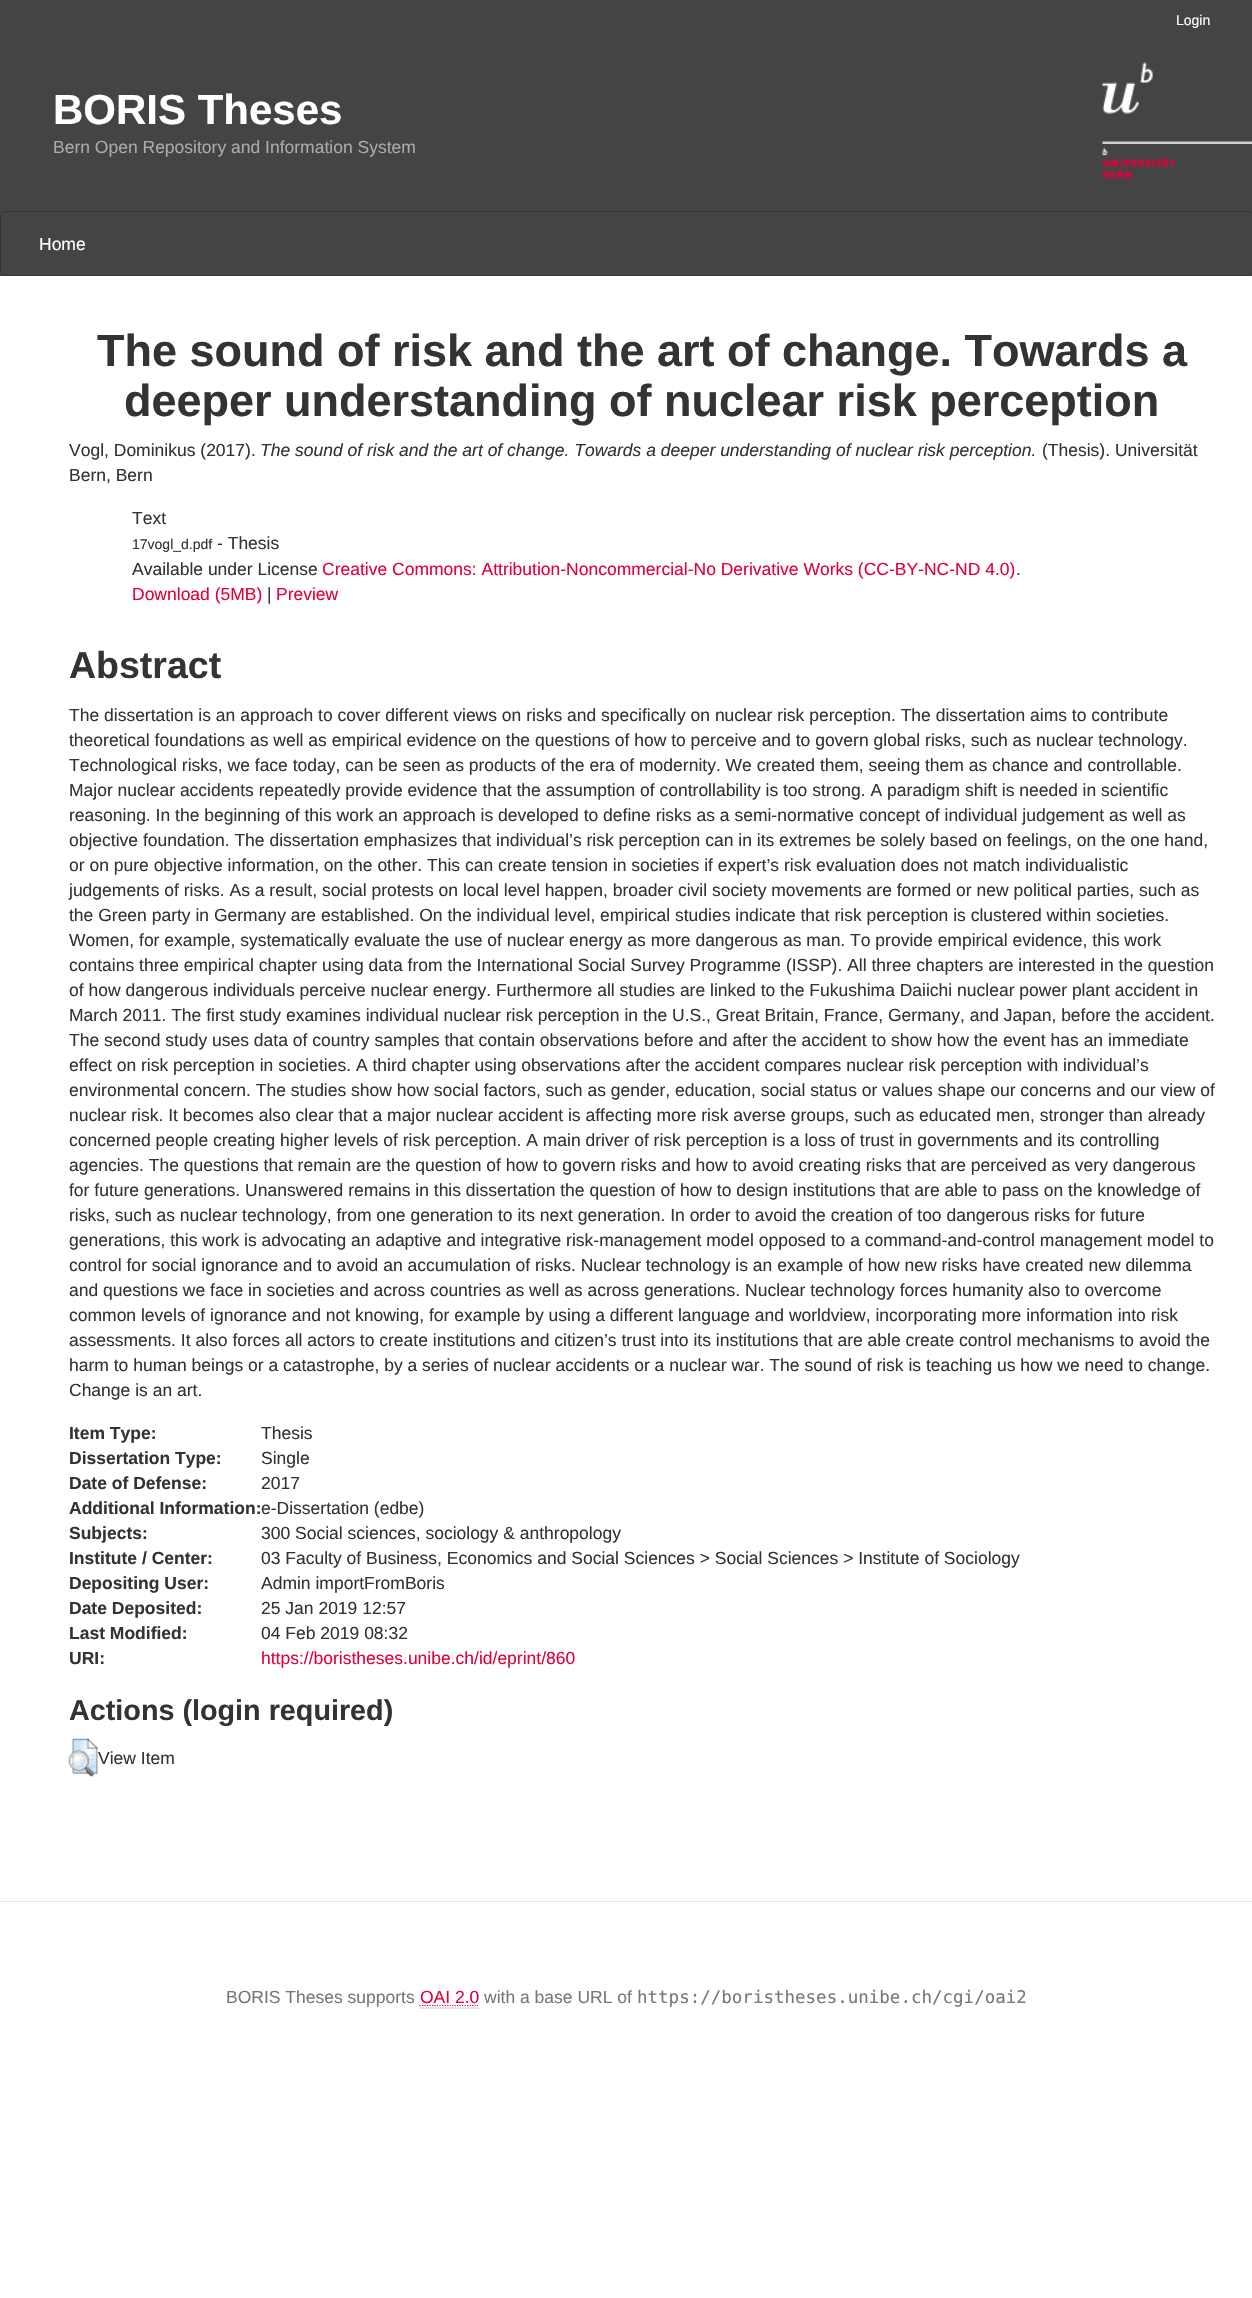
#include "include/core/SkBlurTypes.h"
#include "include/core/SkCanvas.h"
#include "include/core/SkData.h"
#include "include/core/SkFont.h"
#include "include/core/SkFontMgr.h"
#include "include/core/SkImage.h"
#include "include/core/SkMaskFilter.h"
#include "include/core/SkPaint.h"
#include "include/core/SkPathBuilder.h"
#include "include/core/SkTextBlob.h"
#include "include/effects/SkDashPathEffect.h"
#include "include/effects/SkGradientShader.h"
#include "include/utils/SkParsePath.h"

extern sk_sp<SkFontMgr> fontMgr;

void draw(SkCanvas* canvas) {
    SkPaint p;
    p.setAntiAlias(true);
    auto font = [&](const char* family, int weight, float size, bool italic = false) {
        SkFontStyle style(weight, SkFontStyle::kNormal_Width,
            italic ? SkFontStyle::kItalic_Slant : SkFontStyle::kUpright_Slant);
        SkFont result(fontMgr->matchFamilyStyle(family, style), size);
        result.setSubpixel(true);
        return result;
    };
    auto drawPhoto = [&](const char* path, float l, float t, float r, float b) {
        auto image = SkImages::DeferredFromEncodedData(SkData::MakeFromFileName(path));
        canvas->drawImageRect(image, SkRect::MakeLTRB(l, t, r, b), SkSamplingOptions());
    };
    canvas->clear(0xFFFFFFFF);
    p.setColor(0xFF444444);
    canvas->drawRect(SkRect::MakeLTRB(0, 0, 1252, 276), p);
    auto font1 = font("Liberation Sans", 400, 14);
    p.setColor(0xFFFFFFFF);
    canvas->drawString("Login", 1176, 25, font1, p);
    auto font2 = font("Liberation Sans", 700, 42);
    canvas->drawString("BORIS Theses", 53, 124, font2, p);
    auto font3 = font("Liberation Sans", 400, 17.5f);
    p.setColor(0xFFAAAAAA);
    canvas->drawString("Bern Open Repository and Information System", 53, 153, font3, p);
    drawPhoto("media/1.png", 1102, 62, 1252, 179);
    p.setStyle(SkPaint::kStroke_Style);
    p.setStrokeWidth(1);
    p.setColor(0xFF333333);
    canvas->drawRoundRect(SkRect::MakeLTRB(0.5f, 211.5f, 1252.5f, 275.5f), 4.5f, 4.5f, p);
    p.setStyle(SkPaint::kFill_Style);
    p.setColor(0xFFFFFFFF);
    canvas->drawString("Home", 39, 250, font3, p);
    auto font4 = font("Liberation Sans", 700, 45);
    p.setColor(0xFF333333);
    canvas->drawString("The sound of risk and the art of change. Towards a", 97, 366, font4, p);
    canvas->drawString("deeper understanding of nuclear risk perception", 124, 416, font4, p);
    canvas->drawString("Vogl, Dominikus (2017).", 69, 456, font3, p);
    auto font5 = font("Liberation Sans", 400, 17.5f, true);
    canvas->drawString("The sound of risk and the art of change. Towards a deeper understanding of nuclear risk perception.", 260, 456, font5, p);
    {
        const struct { const char* s; float x, y; } items[] = {
            {"(Thesis). Universität", 1042, 456},
            {"Bern, Bern", 69, 481},
            {"Text", 132, 524},
        };
        for (auto [s, x, y] : items) {
            canvas->drawString(s, x, y, font3, p);
        }
    }
    canvas->drawString("17vogl_d.pdf", 132, 549, font1, p);
    canvas->drawString("- Thesis", 217, 549, font3, p);
    canvas->drawString("Available under License", 132, 575, font3, p);
    p.setColor(0xFFE3003D);
    canvas->drawString("Creative Commons: Attribution-Noncommercial-No Derivative Works (CC-BY-NC-ND 4.0)", 322, 575, font3, p);
    p.setColor(0xFF333333);
    canvas->drawString(".", 1016, 575, font3, p);
    p.setColor(0xFFE3003D);
    canvas->drawString("Download (5MB)", 132, 600, font3, p);
    p.setColor(0xFF333333);
    canvas->drawString("|", 267, 600, font3, p);
    p.setColor(0xFFE3003D);
    canvas->drawString("Preview", 276, 600, font3, p);
    auto font6 = font("Liberation Sans", 700, 37.5f);
    p.setColor(0xFF333333);
    canvas->drawString("Abstract", 69, 678, font6, p);
    {
        const struct { const char* s; float x, y; } items[] = {
            {"The dissertation is an approach to cover different views on risks and specifically on nuclear risk perception. The dissertation aims to contribute", 69, 721},
            {"theoretical foundations as well as empirical evidence on the questions of how to perceive and to govern global risks, such as nuclear technology.", 69, 746},
            {"Technological risks, we face today, can be seen as products of the era of modernity. We created them, seeing them as chance and controllable.", 69, 771},
            {"Major nuclear accidents repeatedly provide evidence that the assumption of controllability is too strong. A paradigm shift is needed in scientific", 69, 796},
            {"reasoning. In the beginning of this work an approach is developed to define risks as a semi-normative concept of individual judgement as well as", 69, 821},
            {"objective foundation. The dissertation emphasizes that individual’s risk perception can in its extremes be solely based on feelings, on the one hand,", 69, 846},
            {"or on pure objective information, on the other. This can create tension in societies if expert’s risk evaluation does not match individualistic", 69, 871},
            {"judgements of risks. As a result, social protests on local level happen, broader civil society movements are formed or new political parties, such as", 69, 896},
            {"the Green party in Germany are established. On the individual level, empirical studies indicate that risk perception is clustered within societies.", 69, 921},
            {"Women, for example, systematically evaluate the use of nuclear energy as more dangerous as man. To provide empirical evidence, this work", 69, 946},
            {"contains three empirical chapter using data from the International Social Survey Programme (ISSP). All three chapters are interested in the question", 69, 971},
            {"of how dangerous individuals perceive nuclear energy. Furthermore all studies are linked to the Fukushima Daiichi nuclear power plant accident in", 69, 996},
            {"March 2011. The first study examines individual nuclear risk perception in the U.S., Great Britain, France, Germany, and Japan, before the accident.", 69, 1021},
            {"The second study uses data of country samples that contain observations before and after the accident to show how the event has an immediate", 69, 1046},
            {"effect on risk perception in societies. A third chapter using observations after the accident compares nuclear risk perception with individual’s", 69, 1071},
            {"environmental concern. The studies show how social factors, such as gender, education, social status or values shape our concerns and our view of", 69, 1096},
            {"nuclear risk. It becomes also clear that a major nuclear accident is affecting more risk averse groups, such as educated men, stronger than already", 69, 1121},
            {"concerned people creating higher levels of risk perception. A main driver of risk perception is a loss of trust in governments and its controlling", 69, 1146},
            {"agencies. The questions that remain are the question of how to govern risks and how to avoid creating risks that are perceived as very dangerous", 69, 1171},
            {"for future generations. Unanswered remains in this dissertation the question of how to design institutions that are able to pass on the knowledge of", 69, 1196},
            {"risks, such as nuclear technology, from one generation to its next generation. In order to avoid the creation of too dangerous risks for future", 69, 1221},
            {"generations, this work is advocating an adaptive and integrative risk-management model opposed to a command-and-control management model to", 69, 1246},
            {"control for social ignorance and to avoid an accumulation of risks. Nuclear technology is an example of how new risks have created new dilemma", 69, 1271},
            {"and questions we face in societies and across countries as well as across generations. Nuclear technology forces humanity also to overcome", 69, 1296},
            {"common levels of ignorance and not knowing, for example by using a different language and worldview, incorporating more information into risk", 69, 1321},
            {"assessments. It also forces all actors to create institutions and citizen’s trust into its institutions that are able create control mechanisms to avoid the", 69, 1346},
            {"harm to human beings or a catastrophe, by a series of nuclear accidents or a nuclear war. The sound of risk is teaching us how we need to change.", 69, 1371},
            {"Change is an art.", 69, 1396},
        };
        for (auto [s, x, y] : items) {
            canvas->drawString(s, x, y, font3, p);
        }
    }
    auto font7 = font("Liberation Sans", 700, 17.5f);
    canvas->drawString("Item Type:", 69, 1439, font7, p);
    canvas->drawString("Thesis", 261, 1439, font3, p);
    canvas->drawString("Dissertation Type:", 69, 1464, font7, p);
    canvas->drawString("Single", 261, 1464, font3, p);
    canvas->drawString("Date of Defense:", 69, 1489, font7, p);
    canvas->drawString("2017", 261, 1489, font3, p);
    canvas->drawString("Additional Information:", 69, 1514, font7, p);
    canvas->drawString("e-Dissertation (edbe)", 261, 1514, font3, p);
    canvas->drawString("Subjects:", 69, 1539, font7, p);
    canvas->drawString("300 Social sciences, sociology & anthropology", 261, 1539, font3, p);
    canvas->drawString("Institute / Center:", 69, 1564, font7, p);
    canvas->drawString("03 Faculty of Business, Economics and Social Sciences > Social Sciences > Institute of Sociology", 261, 1564, font3, p);
    canvas->drawString("Depositing User:", 69, 1589, font7, p);
    canvas->drawString("Admin importFromBoris", 261, 1589, font3, p);
    canvas->drawString("Date Deposited:", 69, 1614, font7, p);
    canvas->drawString("25 Jan 2019 12:57", 261, 1614, font3, p);
    canvas->drawString("Last Modified:", 69, 1639, font7, p);
    canvas->drawString("04 Feb 2019 08:32", 261, 1639, font3, p);
    canvas->drawString("URI:", 69, 1664, font7, p);
    p.setColor(0xFFE3003D);
    canvas->drawString("https://boristheses.unibe.ch/id/eprint/860", 261, 1664, font3, p);
    auto font8 = font("Liberation Sans", 700, 28.75f);
    p.setColor(0xFF333333);
    canvas->drawString("Actions (login required)", 69, 1720, font8, p);
    drawPhoto("media/2.png", 68, 1738, 98, 1777);
    canvas->drawString("View Item", 98, 1764, font3, p);
    p.setColor(0xFFE5E5E5);
    canvas->drawRect(SkRect::MakeLTRB(0, 1901, 1252, 1902), p);
    p.setColor(0xFF777777);
    canvas->drawString("BORIS Theses supports", 226, 2003, font3, p);
    p.setColor(0xFFE3003D);
    canvas->drawString("OAI 2.0", 420, 2003, font3, p);
    p.setStyle(SkPaint::kStroke_Style);
    p.setStrokeWidth(1.2f);
    p.setColor(0xFF999999);
    p.setPathEffect(SkDashPathEffect::Make({{1.25f, 1.25f}}, 0));
    canvas->drawPath(SkPathBuilder().moveTo(420, 2008).lineTo(479, 2008).detach(), p);
    p.setPathEffect(nullptr);
    p.setColor(0xFFE3003D);
    p.setPathEffect(SkDashPathEffect::Make({{1.25f, 1.25f}}, 0));
    canvas->drawPath(SkPathBuilder().moveTo(419.5f, 2005.5f).lineTo(479, 2005.5f).detach(), p);
    p.setPathEffect(nullptr);
    p.setStyle(SkPaint::kFill_Style);
    p.setColor(0xFF777777);
    canvas->drawString("with a base URL of", 484, 2003, font3, p);
    auto font9 = font("DejaVu Sans Mono", 400, 17.5f);
    canvas->drawString("https://boristheses.unibe.ch/cgi/oai2", 637, 2003, font9, p);
}
